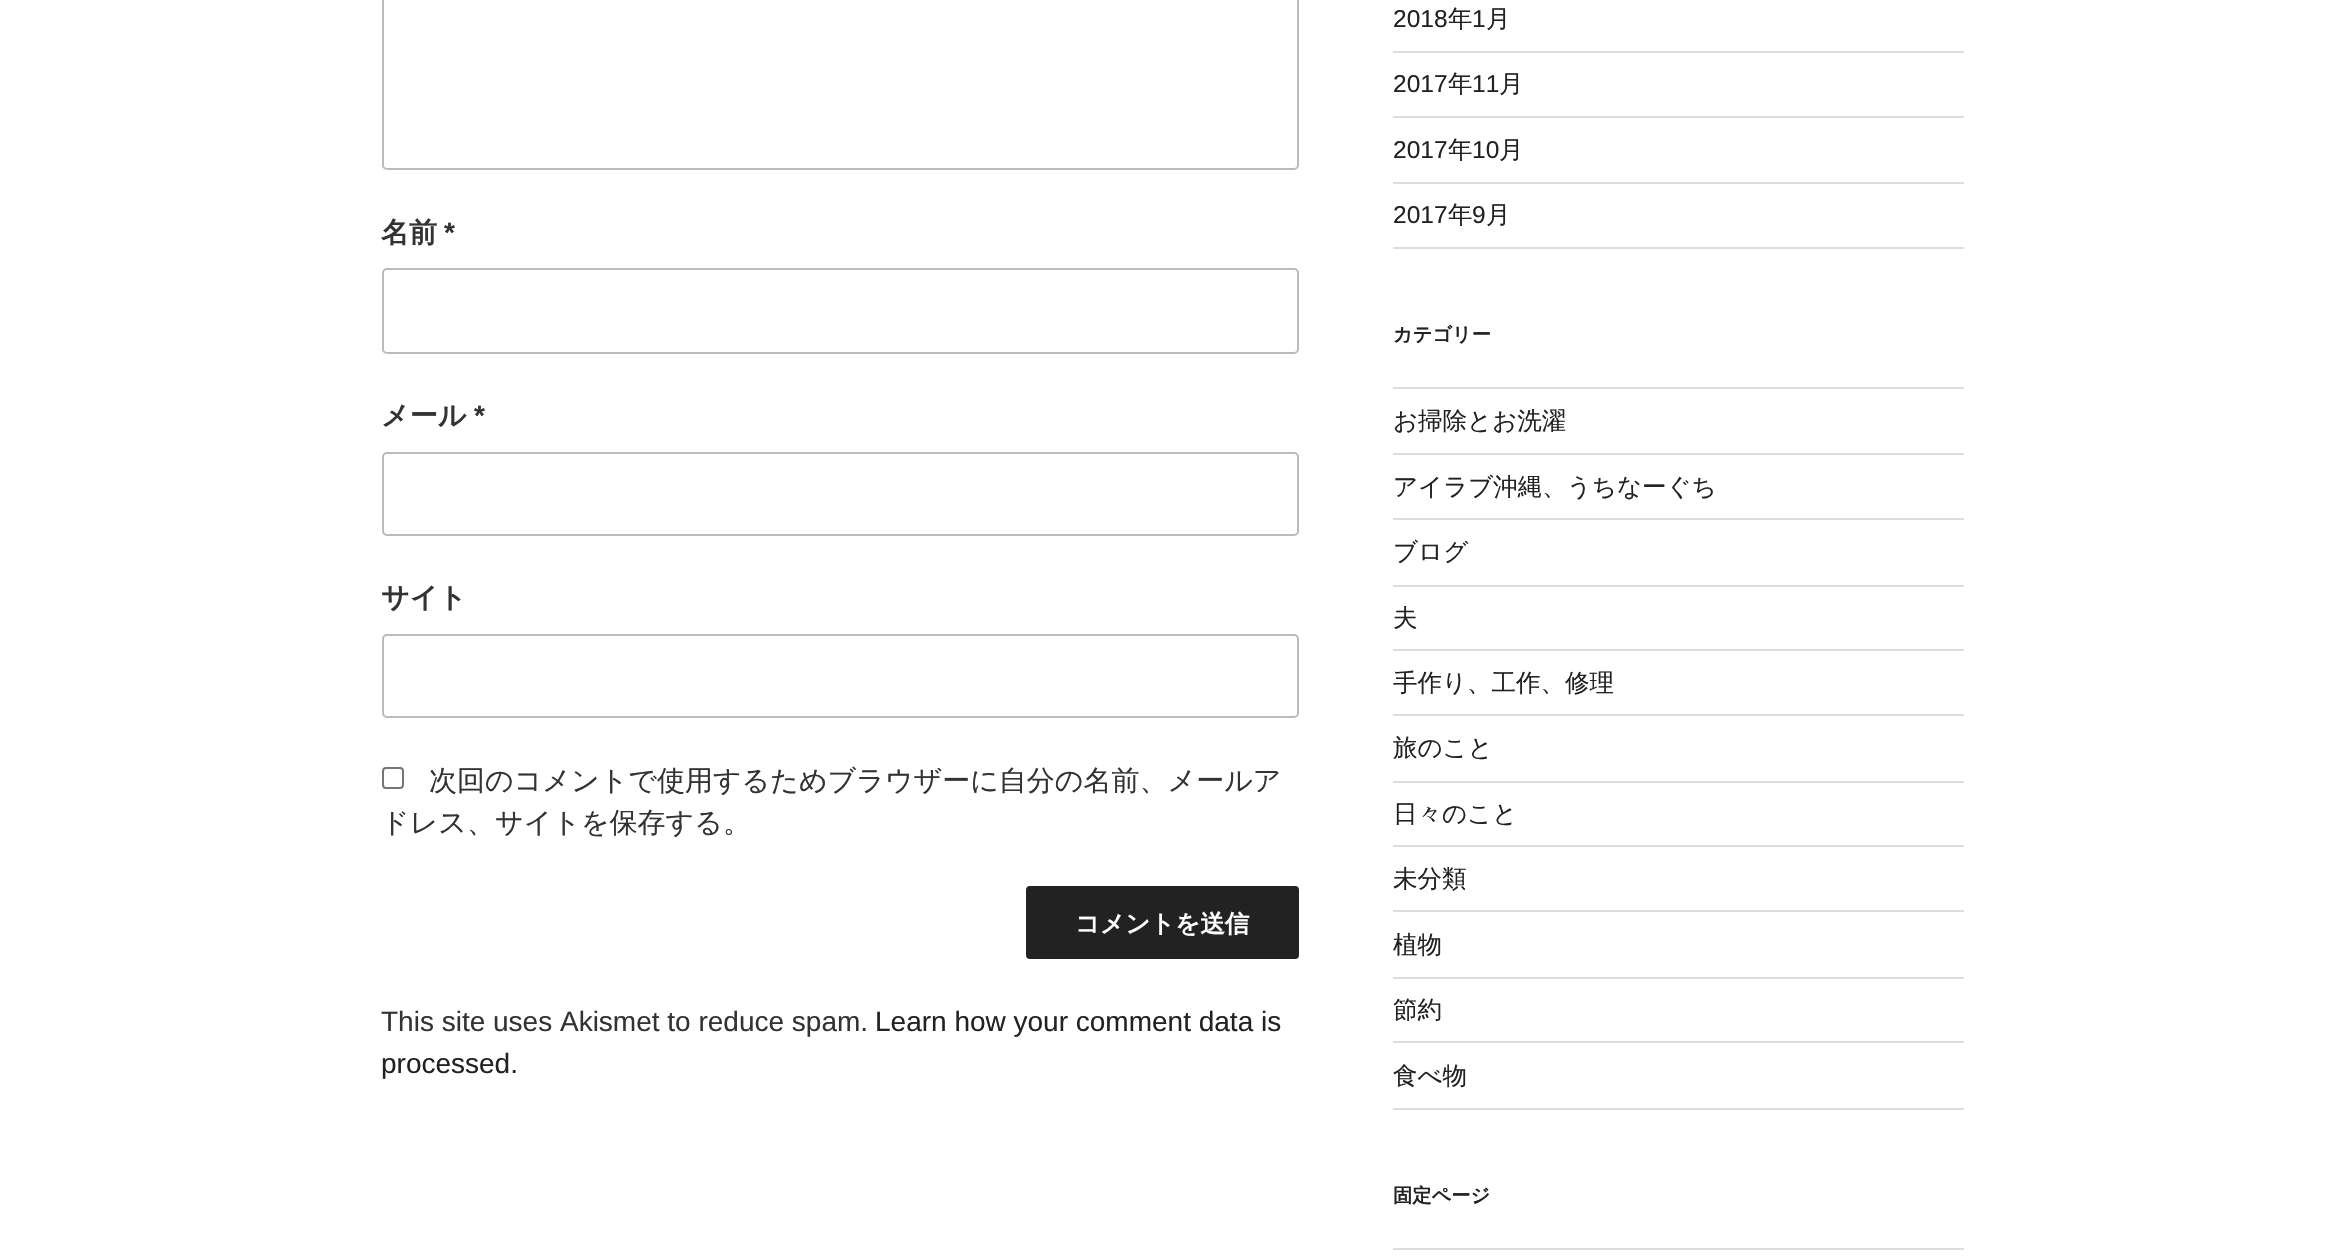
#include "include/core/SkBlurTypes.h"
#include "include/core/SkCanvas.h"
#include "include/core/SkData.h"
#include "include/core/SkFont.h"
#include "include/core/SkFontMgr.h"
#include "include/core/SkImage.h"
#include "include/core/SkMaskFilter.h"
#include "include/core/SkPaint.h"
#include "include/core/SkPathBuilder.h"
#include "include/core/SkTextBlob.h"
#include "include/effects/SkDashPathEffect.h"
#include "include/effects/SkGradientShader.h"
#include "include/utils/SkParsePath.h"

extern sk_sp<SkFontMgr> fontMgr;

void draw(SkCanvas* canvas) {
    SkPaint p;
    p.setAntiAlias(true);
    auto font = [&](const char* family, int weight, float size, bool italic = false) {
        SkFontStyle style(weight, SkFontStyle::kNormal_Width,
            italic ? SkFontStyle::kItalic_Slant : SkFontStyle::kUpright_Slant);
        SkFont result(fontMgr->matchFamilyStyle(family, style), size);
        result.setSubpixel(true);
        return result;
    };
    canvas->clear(0xFFFFFFFF);
    p.setStyle(SkPaint::kStroke_Style);
    p.setStrokeWidth(2);
    p.setColor(0xFFBBBBBB);
    canvas->drawRoundRect(SkRect::MakeLTRB(383, -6, 1298, 169), 4, 4, p);
    auto font1 = font("WenQuanYi Zen Hei", 700, 28);
    p.setStyle(SkPaint::kFill_Style);
    p.setColor(0xFF333333);
    canvas->drawString("名前", 381, 242, font1, p);
    auto font2 = font("Liberation Sans", 700, 28);
    canvas->drawString("*", 444, 242, font2, p);
    p.setStyle(SkPaint::kStroke_Style);
    p.setColor(0xFFBBBBBB);
    canvas->drawRoundRect(SkRect::MakeLTRB(383, 269, 1298, 353), 4, 4, p);
    p.setStyle(SkPaint::kFill_Style);
    p.setColor(0xFF333333);
    canvas->drawString("メール", 381, 425, font1, p);
    canvas->drawString("*", 474, 425, font2, p);
    p.setStyle(SkPaint::kStroke_Style);
    p.setColor(0xFFBBBBBB);
    canvas->drawRoundRect(SkRect::MakeLTRB(383, 453, 1298, 535), 4, 4, p);
    p.setStyle(SkPaint::kFill_Style);
    p.setColor(0xFF333333);
    canvas->drawString("サイト", 381, 607, font1, p);
    p.setStyle(SkPaint::kStroke_Style);
    p.setColor(0xFFBBBBBB);
    canvas->drawRoundRect(SkRect::MakeLTRB(383, 635, 1298, 717), 4, 4, p);
    p.setColor(0xFF767676);
    canvas->drawRoundRect(SkRect::MakeLTRB(383, 768, 403, 788), 3, 3, p);
    auto font3 = font("WenQuanYi Zen Hei", 500, 28);
    p.setStyle(SkPaint::kFill_Style);
    p.setColor(0xFF333333);
    canvas->drawString("次回のコメントで使用するためブラウザーに自分の名前、メールア", 429, 790, font3, p);
    canvas->drawString("ドレス、サイトを保存する。", 381, 832, font3, p);
    p.setColor(0xFF222222);
    canvas->drawRoundRect(SkRect::MakeLTRB(1026, 886, 1299, 959), 4, 4, p);
    auto font4 = font("WenQuanYi Zen Hei", 700, 24.5f);
    p.setColor(0xFFFFFFFF);
    canvas->drawString("コメントを送信", 1075, 932, font4, p);
    auto font5 = font("Liberation Sans", 400, 28);
    p.setColor(0xFF333333);
    canvas->drawString("This site uses Akismet to reduce spam.", 381, 1031, font5, p);
    p.setColor(0xFF222222);
    canvas->drawString("Learn how your comment data is", 875, 1031, font5, p);
    canvas->drawString("processed.", 381, 1073, font5, p);
    p.setColor(0xFFDDDDDD);
    canvas->drawRect(SkRect::MakeLTRB(1393, 51, 1964, 53), p);
    auto font6 = font("Liberation Sans", 400, 24.5f);
    p.setColor(0xFF222222);
    canvas->drawString("2018", 1393, 27, font6, p);
    auto font7 = font("WenQuanYi Zen Hei", 500, 24.5f);
    canvas->drawString("年", 1448, 27, font7, p);
    canvas->drawString("1", 1472, 27, font6, p);
    canvas->drawString("月", 1486, 27, font7, p);
    p.setColor(0xFFDDDDDD);
    canvas->drawRect(SkRect::MakeLTRB(1393, 116, 1964, 118), p);
    p.setColor(0xFF222222);
    canvas->drawString("2017", 1393, 92, font6, p);
    canvas->drawString("年", 1448, 92, font7, p);
    canvas->drawString("11", 1472, 92, font6, p);
    canvas->drawString("月", 1499, 92, font7, p);
    p.setColor(0xFFDDDDDD);
    canvas->drawRect(SkRect::MakeLTRB(1393, 182, 1964, 184), p);
    p.setColor(0xFF222222);
    canvas->drawString("2017", 1393, 158, font6, p);
    canvas->drawString("年", 1448, 158, font7, p);
    canvas->drawString("10", 1472, 158, font6, p);
    canvas->drawString("月", 1499, 158, font7, p);
    p.setColor(0xFFDDDDDD);
    canvas->drawRect(SkRect::MakeLTRB(1393, 247, 1964, 249), p);
    p.setColor(0xFF222222);
    canvas->drawString("2017", 1393, 223, font6, p);
    canvas->drawString("年", 1448, 223, font7, p);
    canvas->drawString("9", 1472, 223, font6, p);
    canvas->drawString("月", 1486, 223, font7, p);
    auto font8 = font("WenQuanYi Zen Hei", 700, 19.25f);
    canvas->drawString("カテゴリー", 1393, 341, font8, p);
    p.setColor(0xFFDDDDDD);
    canvas->drawRect(SkRect::MakeLTRB(1393, 387, 1964, 389), p);
    canvas->drawRect(SkRect::MakeLTRB(1393, 453, 1964, 455), p);
    p.setColor(0xFF222222);
    canvas->drawString("お掃除とお洗濯", 1393, 429, font7, p);
    p.setColor(0xFFDDDDDD);
    canvas->drawRect(SkRect::MakeLTRB(1393, 518, 1964, 520), p);
    p.setColor(0xFF222222);
    canvas->drawString("アイラブ沖縄、うちなーぐち", 1393, 495, font7, p);
    p.setColor(0xFFDDDDDD);
    canvas->drawRect(SkRect::MakeLTRB(1393, 585, 1964, 587), p);
    p.setColor(0xFF222222);
    canvas->drawString("ブログ", 1393, 560, font7, p);
    p.setColor(0xFFDDDDDD);
    canvas->drawRect(SkRect::MakeLTRB(1393, 649, 1964, 651), p);
    p.setColor(0xFF222222);
    canvas->drawString("夫", 1393, 626, font7, p);
    p.setColor(0xFFDDDDDD);
    canvas->drawRect(SkRect::MakeLTRB(1393, 714, 1964, 716), p);
    p.setColor(0xFF222222);
    canvas->drawString("手作り、工作、修理", 1393, 691, font7, p);
    p.setColor(0xFFDDDDDD);
    canvas->drawRect(SkRect::MakeLTRB(1393, 781, 1964, 783), p);
    p.setColor(0xFF222222);
    canvas->drawString("旅のこと", 1393, 756, font7, p);
    p.setColor(0xFFDDDDDD);
    canvas->drawRect(SkRect::MakeLTRB(1393, 845, 1964, 847), p);
    p.setColor(0xFF222222);
    canvas->drawString("日々のこと", 1393, 822, font7, p);
    p.setColor(0xFFDDDDDD);
    canvas->drawRect(SkRect::MakeLTRB(1393, 910, 1964, 912), p);
    p.setColor(0xFF222222);
    canvas->drawString("未分類", 1393, 887, font7, p);
    p.setColor(0xFFDDDDDD);
    canvas->drawRect(SkRect::MakeLTRB(1393, 977, 1964, 979), p);
    p.setColor(0xFF222222);
    canvas->drawString("植物", 1393, 953, font7, p);
    p.setColor(0xFFDDDDDD);
    canvas->drawRect(SkRect::MakeLTRB(1393, 1041, 1964, 1043), p);
    p.setColor(0xFF222222);
    canvas->drawString("節約", 1393, 1018, font7, p);
    p.setColor(0xFFDDDDDD);
    canvas->drawRect(SkRect::MakeLTRB(1393, 1108, 1964, 1110), p);
    p.setColor(0xFF222222);
    canvas->drawString("食べ物", 1393, 1084, font7, p);
    canvas->drawString("固定ページ", 1393, 1202, font8, p);
    p.setColor(0xFFDDDDDD);
    canvas->drawRect(SkRect::MakeLTRB(1393, 1248, 1964, 1250), p);
}
